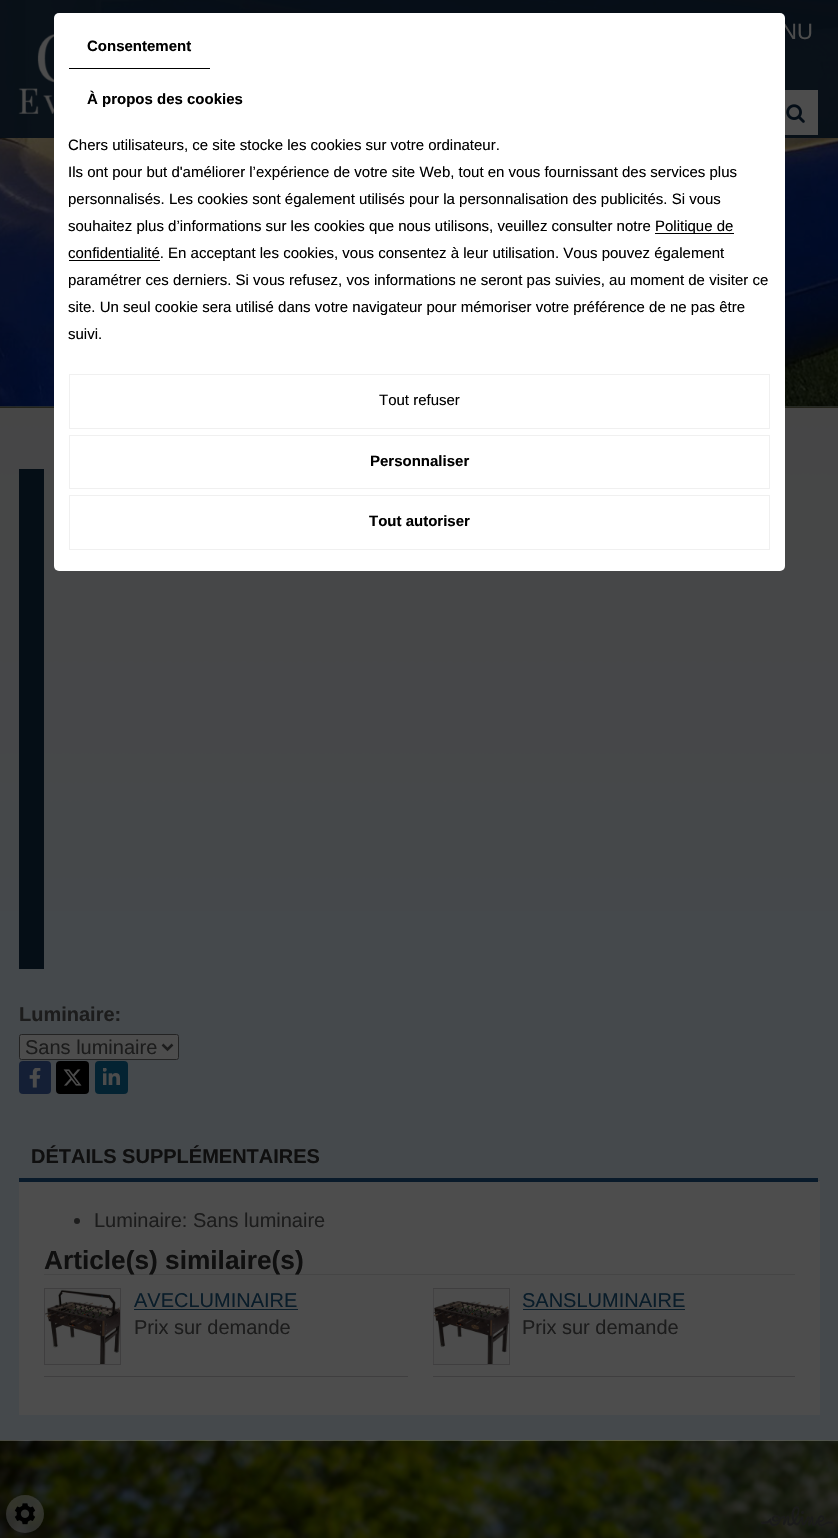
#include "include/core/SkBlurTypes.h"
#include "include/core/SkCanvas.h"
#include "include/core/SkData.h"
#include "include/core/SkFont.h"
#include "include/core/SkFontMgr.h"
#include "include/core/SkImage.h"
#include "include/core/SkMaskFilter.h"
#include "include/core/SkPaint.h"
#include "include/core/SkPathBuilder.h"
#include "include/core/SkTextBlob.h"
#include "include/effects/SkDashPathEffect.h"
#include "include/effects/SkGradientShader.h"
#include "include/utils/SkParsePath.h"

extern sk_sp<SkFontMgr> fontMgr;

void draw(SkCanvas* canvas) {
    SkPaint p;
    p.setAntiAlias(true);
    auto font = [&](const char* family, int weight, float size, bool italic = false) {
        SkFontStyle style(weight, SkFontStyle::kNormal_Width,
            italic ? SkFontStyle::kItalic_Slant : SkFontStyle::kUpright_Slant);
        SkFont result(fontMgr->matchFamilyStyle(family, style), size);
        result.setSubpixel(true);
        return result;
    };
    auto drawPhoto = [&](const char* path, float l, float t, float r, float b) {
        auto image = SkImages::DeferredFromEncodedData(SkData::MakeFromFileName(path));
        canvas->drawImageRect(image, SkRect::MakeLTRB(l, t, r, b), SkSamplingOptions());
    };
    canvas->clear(0xFFFFFFFF);
    p.setColor(0xFF45494C);
    canvas->drawRect(SkRect::MakeLTRB(0, 406, 838, 1440), p);
    drawPhoto("media/4.png", 0, 406, 838, 911);
    drawPhoto("media/1.png", 0, 0, 838, 407);
    p.setColor(0xF2050E16);
    canvas->drawRect(SkRect::MakeLTRB(0, 0, 838, 138), p);
    auto font1 = font("Liberation Sans", 400, 22);
    p.setColor(0xFF4D4D4D);
    canvas->drawString("NU", 781, 39, font1, p);
    canvas->drawRect(SkRect::MakeLTRB(785, 90, 818, 135), p);
    drawPhoto("media/2.png", 786, 104, 805, 123);
    drawPhoto("media/3.png", 18, 34, 54, 114);
    p.setColor(0xFF050E16);
    canvas->drawRect(SkRect::MakeLTRB(19, 469, 44, 969), p);
    auto font2 = font("Liberation Sans", 700, 20);
    p.setColor(0xFF1C1C1C);
    canvas->drawString("Luminaire:", 19, 1021, font2, p);
    p.setColor(0xFF4D4D4D);
    canvas->drawRoundRect(SkRect::MakeLTRB(19.5f, 1034.5f, 178.5f, 1059.5f), 2, 2, p);
    p.setStyle(SkPaint::kStroke_Style);
    p.setStrokeWidth(1);
    p.setColor(0xFF232323);
    canvas->drawRoundRect(SkRect::MakeLTRB(19.5f, 1034.5f, 178.5f, 1059.5f), 2, 2, p);
    p.setStrokeWidth(2.5f);
    p.setColor(0xFF1C1C1C);
    canvas->drawPath(SkPathBuilder().moveTo(162.5f, 1044.5f).lineTo(167.5f, 1049.5f).lineTo(172.5f, 1044.5f).detach(), p);
    auto font3 = font("Liberation Sans", 400, 20);
    p.setStyle(SkPaint::kFill_Style);
    canvas->drawString("Sans luminaire", 25, 1054, font3, p);
    p.setColor(0xFF141F35);
    canvas->drawRoundRect(SkRect::MakeLTRB(19, 1061, 51, 1094), 4, 4, p);
    drawPhoto("media/5.png", 29, 1068, 41, 1088);
    p.setColor(0xFF000000);
    canvas->drawRoundRect(SkRect::MakeLTRB(56, 1061, 89, 1094), 4, 4, p);
    drawPhoto("media/6.png", 63, 1069, 82, 1086);
    p.setColor(0xFF042332);
    canvas->drawRoundRect(SkRect::MakeLTRB(95, 1061, 128, 1094), 4, 4, p);
    drawPhoto("media/7.png", 103, 1068, 120, 1085);
    p.setColor(0xFF0F0F0F);
    canvas->drawString("DÉTAILS SUPPLÉMENTAIRES", 31, 1163, font2, p);
    {
        const struct { float l, t, r, b; SkColor color; } items[] = {
            {19, 1181, 820, 1415, 0xFF4D4D4D},
            {19, 1178, 818, 1182, 0xFF091A2A},
            {818, 1180, 820, 1181, 0xFF454545},
        };
        for (auto [l, t, r, b, color] : items) {
            p.setColor(color);
            canvas->drawRect(SkRect::MakeLTRB(l, t, r, b), p);
        }
    }
    p.setColor(0xFF1C1C1C);
    canvas->drawCircle(77, 1221, 3, p);
    canvas->drawString("Luminaire: Sans luminaire", 94, 1227, font3, p);
    p.setColor(0xFF454545);
    canvas->drawRect(SkRect::MakeLTRB(44, 1274, 795, 1275), p);
    auto font4 = font("Liberation Sans", 700, 26.25f);
    p.setColor(0xFF0F0F0F);
    canvas->drawString("Article(s) similaire(s)", 44, 1269, font4, p);
    p.setStyle(SkPaint::kStroke_Style);
    p.setStrokeWidth(1);
    p.setColor(0xFF3F3E3F);
    canvas->drawRect(SkRect::MakeLTRB(44.5f, 1288.5f, 120.5f, 1364.5f), p);
    drawPhoto("media/8.png", 45, 1289, 120, 1364);
    p.setStyle(SkPaint::kFill_Style);
    p.setColor(0xFF091C29);
    canvas->drawString("AVECLUMINAIRE", 134, 1307, font3, p);
    canvas->drawRect(SkRect::MakeLTRB(134, 1309, 298, 1310), p);
    p.setColor(0xFF1C1C1C);
    canvas->drawString("Prix sur demande", 134, 1334, font3, p);
    p.setColor(0xFF3F3E3F);
    canvas->drawRect(SkRect::MakeLTRB(44, 1376, 408, 1377), p);
    p.setStyle(SkPaint::kStroke_Style);
    canvas->drawRect(SkRect::MakeLTRB(433.5f, 1288.5f, 509.5f, 1364.5f), p);
    drawPhoto("media/9.png", 433, 1289, 509, 1364);
    p.setStyle(SkPaint::kFill_Style);
    p.setColor(0xFF091C29);
    canvas->drawString("SANSLUMINAIRE", 522, 1307, font3, p);
    canvas->drawRect(SkRect::MakeLTRB(523, 1309, 685, 1310), p);
    p.setColor(0xFF1C1C1C);
    canvas->drawString("Prix sur demande", 522, 1334, font3, p);
    p.setColor(0xFF3F3E3F);
    canvas->drawRect(SkRect::MakeLTRB(433, 1376, 795, 1377), p);
    drawPhoto("media/10.png", 0, 1440, 838, 1538);
    p.setColor(0xFFFFFFFF);
    canvas->drawRoundRect(SkRect::MakeLTRB(54, 13, 785, 571), 5, 5, p);
    p.setColor(0xFF000000);
    canvas->drawRect(SkRect::MakeLTRB(69, 68, 210, 69), p);
    auto font5 = font("Liberation Sans", 700, 15);
    canvas->drawString("Consentement", 87, 51, font5, p);
    canvas->drawString("À propos des cookies", 87, 104, font5, p);
    auto font6 = font("Liberation Sans", 400, 15);
    {
        const struct { const char* s; float x, y; } items[] = {
            {"Chers utilisateurs, ce site stocke les cookies sur votre ordinateur.", 68, 150},
            {"Ils ont pour but d'améliorer l’expérience de votre site Web, tout en vous fournissant des services plus", 68, 177},
            {"personnalisés. Les cookies sont également utilisés pour la personnalisation des publicités. Si vous", 68, 204},
            {"souhaitez plus d’informations sur les cookies que nous utilisons, veuillez consulter notre", 68, 231},
        };
        for (auto [s, x, y] : items) {
            canvas->drawString(s, x, y, font6, p);
        }
    }
    canvas->drawRect(SkRect::MakeLTRB(655, 233, 734, 234), p);
    canvas->drawString("Politique de", 655, 231, font6, p);
    canvas->drawRect(SkRect::MakeLTRB(69, 260, 160, 261), p);
    {
        const struct { const char* s; float x, y; } items[] = {
            {"confidentialité. En acceptant les cookies, vous consentez à leur utilisation. Vous pouvez également", 68, 258},
            {"paramétrer ces derniers. Si vous refusez, vos informations ne seront pas suivies, au moment de visiter ce", 68, 285},
            {"site. Un seul cookie sera utilisé dans votre navigateur pour mémoriser votre préférence de ne pas être", 68, 312},
            {"suivi.", 68, 339},
        };
        for (auto [s, x, y] : items) {
            canvas->drawString(s, x, y, font6, p);
        }
    }
    p.setStyle(SkPaint::kStroke_Style);
    p.setColor(0xFFF0F0F0);
    canvas->drawRect(SkRect::MakeLTRB(69.5f, 374.5f, 769.5f, 428.5f), p);
    p.setStyle(SkPaint::kFill_Style);
    p.setColor(0xFF000000);
    canvas->drawString("Tout refuser", 379, 405, font6, p);
    p.setStyle(SkPaint::kStroke_Style);
    p.setColor(0xFFF0F0F0);
    canvas->drawRect(SkRect::MakeLTRB(69.5f, 435.5f, 769.5f, 488.5f), p);
    p.setStyle(SkPaint::kFill_Style);
    p.setColor(0xFF000000);
    canvas->drawString("Personnaliser", 370, 466, font5, p);
    p.setStyle(SkPaint::kStroke_Style);
    p.setColor(0xFFF0F0F0);
    canvas->drawRect(SkRect::MakeLTRB(69.5f, 495.5f, 769.5f, 549.5f), p);
    p.setStyle(SkPaint::kFill_Style);
    p.setColor(0xFF000000);
    canvas->drawString("Tout autoriser", 369, 526, font5, p);
    p.setColor(0x8A4D4D4D);
    canvas->drawCircle(25, 1514, 19, p);
    drawPhoto("media/11.png", 14, 1503, 36, 1525);
    drawPhoto("media/12.png", 761, 1506, 833, 1527);
}
